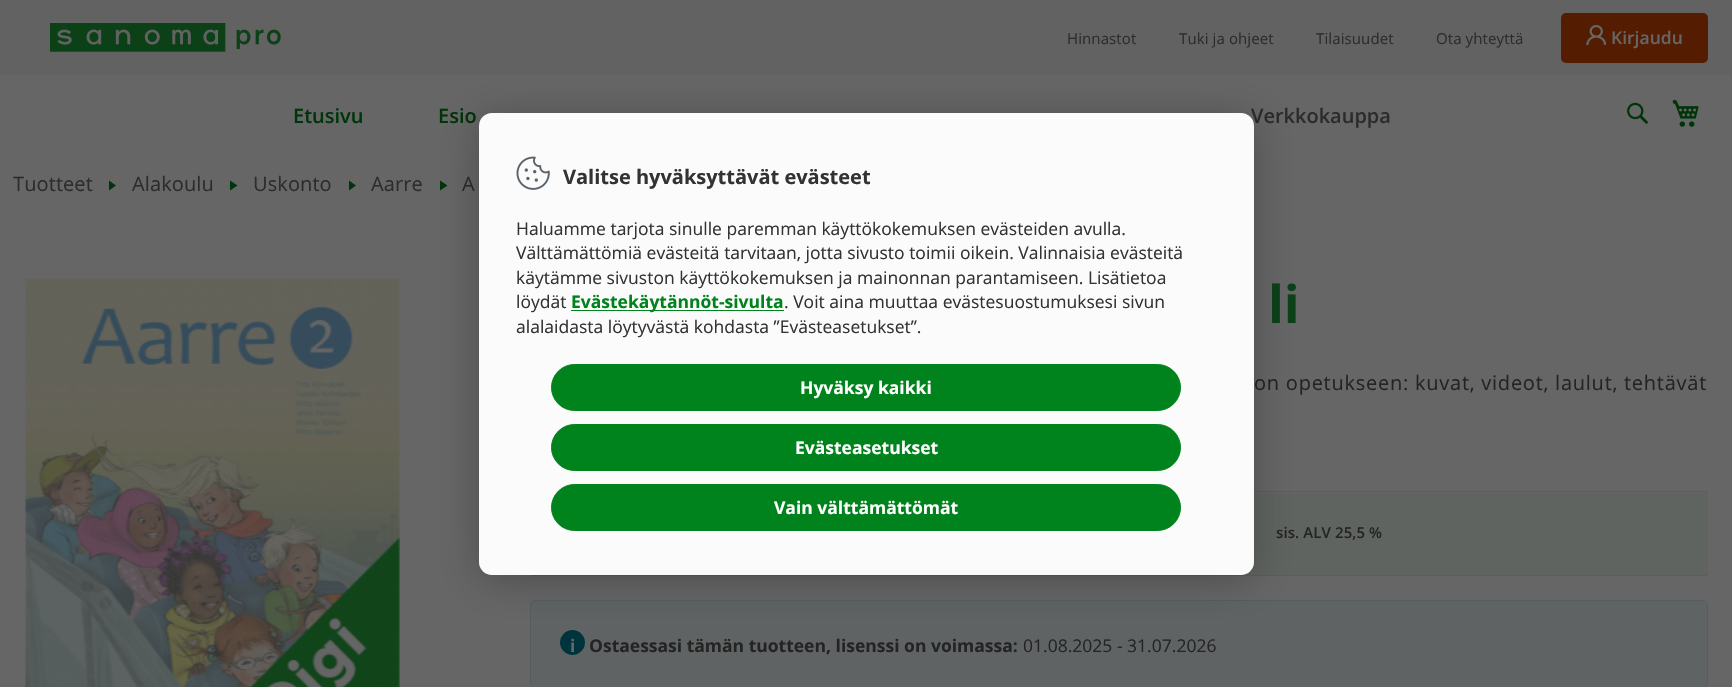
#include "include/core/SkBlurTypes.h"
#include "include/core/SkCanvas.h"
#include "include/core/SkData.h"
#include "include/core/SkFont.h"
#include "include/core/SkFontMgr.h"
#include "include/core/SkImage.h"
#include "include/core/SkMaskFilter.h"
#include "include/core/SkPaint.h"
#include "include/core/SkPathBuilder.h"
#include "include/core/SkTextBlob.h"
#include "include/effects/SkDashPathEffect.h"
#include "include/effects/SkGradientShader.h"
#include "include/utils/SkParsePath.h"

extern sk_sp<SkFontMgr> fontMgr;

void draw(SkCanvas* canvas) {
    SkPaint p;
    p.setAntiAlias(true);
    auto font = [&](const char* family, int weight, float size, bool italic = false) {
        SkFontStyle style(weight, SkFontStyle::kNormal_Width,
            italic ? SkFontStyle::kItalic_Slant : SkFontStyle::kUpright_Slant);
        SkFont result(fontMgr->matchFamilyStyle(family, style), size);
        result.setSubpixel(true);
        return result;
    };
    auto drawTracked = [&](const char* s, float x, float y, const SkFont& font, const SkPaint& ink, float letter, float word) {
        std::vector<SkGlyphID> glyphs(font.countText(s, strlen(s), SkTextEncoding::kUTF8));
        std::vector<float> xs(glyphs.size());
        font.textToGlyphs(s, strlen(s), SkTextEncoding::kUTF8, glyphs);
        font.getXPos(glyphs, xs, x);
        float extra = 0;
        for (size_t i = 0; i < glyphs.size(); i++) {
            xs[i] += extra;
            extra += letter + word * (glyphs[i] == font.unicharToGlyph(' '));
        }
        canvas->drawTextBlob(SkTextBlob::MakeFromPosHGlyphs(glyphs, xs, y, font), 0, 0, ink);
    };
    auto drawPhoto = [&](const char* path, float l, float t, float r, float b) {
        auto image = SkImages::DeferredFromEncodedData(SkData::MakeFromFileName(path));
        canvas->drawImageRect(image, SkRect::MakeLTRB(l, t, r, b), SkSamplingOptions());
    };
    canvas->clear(0xFF666666);
    p.setColor(0xFF626262);
    canvas->drawRect(SkRect::MakeLTRB(0, 0, 1732, 75), p);
    drawPhoto("media/1.png", 50, 23, 281, 52);
    auto font1 = font("Open Sans", 400, 15);
    p.setColor(0xFF2C2C2C);
    {
        const struct { const char* s; float x, y; } items[] = {
            {"Hinnastot", 1067, 44},
            {"Tuki ja ohjeet", 1179, 44},
            {"Tilaisuudet", 1316, 44},
            {"Ota yhteyttä", 1436, 44},
        };
        for (auto [s, x, y] : items) {
            drawTracked(s, x, y, font1, p, 0.1f, 0);
        }
    }
    p.setColor(0xFF541C00);
    canvas->drawRoundRect(SkRect::MakeLTRB(1561, 13, 1708, 63), 5, 5, p);
    drawPhoto("media/2.png", 1586, 25, 1606, 45);
    auto font2 = font("Open Sans", 600, 17.5f);
    p.setColor(0xFF666666);
    canvas->drawString("Kirjaudu", 1611, 44, font2, p);
    auto font3 = font("Open Sans", 600, 20);
    p.setColor(0xFF00340B);
    canvas->drawString("Etusivu", 293, 123, font3, p);
    canvas->drawString("Esio", 438, 123, font3, p);
    p.setColor(0xFF2C2C2C);
    canvas->drawString("Verkkokauppa", 1251, 123, font3, p);
    drawPhoto("media/3.png", 1627, 102, 1648, 124);
    drawPhoto("media/4.png", 1672, 99, 1699, 127);
    auto font4 = font("Open Sans", 400, 20);
    drawTracked("Tuotteet", 13, 191, font4, p, 0.1f, 0);
    p.setColor(0xFF00340B);
    canvas->drawPath(SkPathBuilder().moveTo(109, 180.5f).lineTo(109, 190.5f).lineTo(116, 185.5f).close().detach(), p);
    p.setColor(0xFF2C2C2C);
    drawTracked("Alakoulu", 132, 191, font4, p, 0.1f, 0);
    p.setColor(0xFF00340B);
    canvas->drawPath(SkPathBuilder().moveTo(230, 180.5f).lineTo(230, 190.5f).lineTo(237.5f, 185.5f).close().detach(), p);
    p.setColor(0xFF2C2C2C);
    drawTracked("Uskonto", 253, 191, font4, p, 0.1f, 0);
    p.setColor(0xFF00340B);
    canvas->drawPath(SkPathBuilder().moveTo(349, 180.5f).lineTo(349, 190.5f).lineTo(356, 185.5f).close().detach(), p);
    p.setColor(0xFF2C2C2C);
    drawTracked("Aarre", 371, 191, font4, p, 0.1f, 0);
    p.setColor(0xFF00340B);
    canvas->drawPath(SkPathBuilder().moveTo(440, 180.5f).lineTo(440, 190.5f).lineTo(447.5f, 185.5f).close().detach(), p);
    p.setColor(0xFF2C2C2C);
    drawTracked("A", 462, 191, font4, p, 0.1f, 0);
    drawPhoto("media/5.png", 25, 278, 400, 687);
    auto font5 = font("Open Sans", 700, 52);
    p.setColor(0xFF0C4118);
    canvas->drawString("li", 1268, 323, font5, p);
    p.setColor(0xFF242424);
    drawTracked("on opetukseen: kuvat, videot, laulut, tehtävät", 1254, 390, font4, p, 0.75f, 0);
    p.setColor(0xFF5C5C5C);
    canvas->drawPath(SkPathBuilder().moveTo(532, 491).cubicTo(530, 491, 530, 493, 530, 495).cubicTo(530, 494, 531, 492, 532, 492).lineTo(1705, 492).cubicTo(1706, 492, 1708, 494, 1708, 495).lineTo(1707, 573).cubicTo(1709, 571, 1708, 502, 1708, 494).cubicTo(1708, 492, 1707, 491, 1706, 491).close().detach(), p);
    canvas->drawPath(SkPathBuilder().moveTo(530, 572).lineTo(530, 574).cubicTo(530, 575, 531, 576, 532, 576).lineTo(1706, 576).cubicTo(1707, 576, 1708, 575, 1708, 574).lineTo(1708, 496).lineTo(1708, 495).lineTo(1708, 572).cubicTo(1708, 574, 1706, 575, 1705, 575).lineTo(532, 575).cubicTo(531, 575, 530, 574, 530, 572).close().detach(), p);
    p.setColor(0xFF606460);
    canvas->drawRoundRect(SkRect::MakeLTRB(530, 493, 1708, 575), 2.5f, 2.5f, p);
    auto font6 = font("Open Sans", 600, 15);
    p.setColor(0xFF242424);
    drawTracked("sis. ALV 25,5 %", 1276, 538, font6, p, 0.1f, 0);
    p.setColor(0xFF606363);
    canvas->drawRoundRect(SkRect::MakeLTRB(530.5f, 600.5f, 1707.5f, 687.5f), 4.5f, 4.5f, p);
    p.setStyle(SkPaint::kStroke_Style);
    p.setStrokeWidth(1);
    p.setColor(0xFF525E60);
    canvas->drawRoundRect(SkRect::MakeLTRB(530.5f, 600.5f, 1707.5f, 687.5f), 4.5f, 4.5f, p);
    p.setStyle(SkPaint::kFill_Style);
    p.setColor(0xFF00343C);
    canvas->drawCircle(572.5f, 642.5f, 11, p);
    p.setStyle(SkPaint::kStroke_Style);
    p.setStrokeWidth(3);
    canvas->drawCircle(572.5f, 642.5f, 11, p);
    auto font7 = font("Open Sans", 700, 17.5f);
    p.setStyle(SkPaint::kFill_Style);
    p.setColor(0xFF666666);
    canvas->drawString("i", 570, 652, font7, p);
    p.setColor(0xFF242424);
    canvas->drawString("Ostaessasi tämän tuotteen, lisenssi on voimassa:", 589, 652, font7, p);
    auto font8 = font("Open Sans", 400, 17.5f);
    canvas->drawString("01.08.2025 - 31.07.2026", 1023, 652, font8, p);
    p.setColor(0x40000000);
    p.setMaskFilter(SkMaskFilter::MakeBlur(kNormal_SkBlurStyle, 20));
    canvas->drawRoundRect(SkRect::MakeLTRB(479, 118, 1254, 580), 13, 13, p);
    p.setMaskFilter(nullptr);
    p.setColor(0xFFFBFBFB);
    canvas->drawRoundRect(SkRect::MakeLTRB(479, 113, 1254, 575), 13, 13, p);
    drawPhoto("media/6.png", 516, 156, 550, 190);
    auto font9 = font("Open Sans", 700, 20);
    p.setColor(0xFF333333);
    canvas->drawString("Valitse hyväksyttävät evästeet", 563, 184, font9, p);
    {
        const struct { const char* s; float x, y; } items[] = {
            {"Haluamme tarjota sinulle paremman käyttökokemuksen evästeiden avulla.", 516, 235},
            {"Välttämättömiä evästeitä tarvitaan, jotta sivusto toimii oikein. Valinnaisia evästeitä", 516, 259},
            {"käytämme sivuston käyttökokemuksen ja mainonnan parantamiseen. Lisätietoa", 516, 284},
            {"löydät", 516, 308},
        };
        for (auto [s, x, y] : items) {
            canvas->drawString(s, x, y, font8, p);
        }
    }
    p.setColor(0xFF00831C);
    canvas->drawRect(SkRect::MakeLTRB(571, 310, 784, 311), p);
    canvas->drawString("Evästekäytännöt-sivulta", 571, 308, font7, p);
    p.setColor(0xFF333333);
    canvas->drawString(". Voit aina muuttaa evästesuostumuksesi sivun", 784, 308, font8, p);
    canvas->drawString("alalaidasta löytyvästä kohdasta ”Evästeasetukset”.", 516, 333, font8, p);
    p.setColor(0xFF00831C);
    canvas->drawRoundRect(SkRect::MakeLTRB(551.5f, 364.5f, 1180.5f, 410.5f), 23, 23, p);
    p.setStyle(SkPaint::kStroke_Style);
    p.setStrokeWidth(1);
    canvas->drawRoundRect(SkRect::MakeLTRB(551.5f, 364.5f, 1180.5f, 410.5f), 23, 23, p);
    p.setStyle(SkPaint::kFill_Style);
    p.setColor(0xFFFFFFFF);
    canvas->drawString("Hyväksy kaikki", 800, 394, font7, p);
    p.setColor(0xFF00831C);
    canvas->drawRoundRect(SkRect::MakeLTRB(551.5f, 424.5f, 1180.5f, 470.5f), 23, 23, p);
    p.setStyle(SkPaint::kStroke_Style);
    canvas->drawRoundRect(SkRect::MakeLTRB(551.5f, 424.5f, 1180.5f, 470.5f), 23, 23, p);
    p.setStyle(SkPaint::kFill_Style);
    p.setColor(0xFFFFFFFF);
    canvas->drawString("Evästeasetukset", 795, 454, font7, p);
    p.setColor(0xFF00831C);
    canvas->drawRoundRect(SkRect::MakeLTRB(551.5f, 484.5f, 1180.5f, 530.5f), 23, 23, p);
    p.setStyle(SkPaint::kStroke_Style);
    canvas->drawRoundRect(SkRect::MakeLTRB(551.5f, 484.5f, 1180.5f, 530.5f), 23, 23, p);
    p.setStyle(SkPaint::kFill_Style);
    p.setColor(0xFFFFFFFF);
    canvas->drawString("Vain välttämättömät", 774, 514, font7, p);
}
